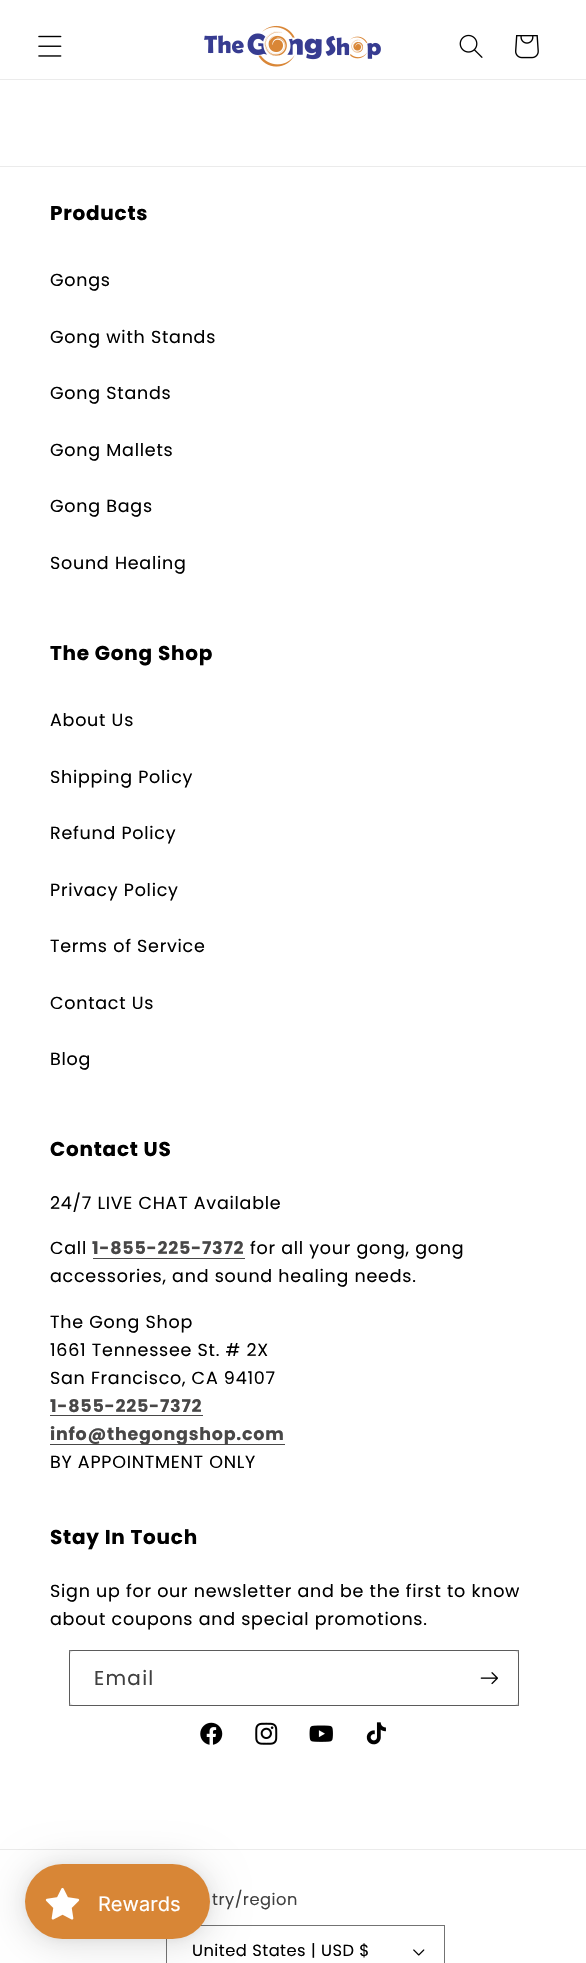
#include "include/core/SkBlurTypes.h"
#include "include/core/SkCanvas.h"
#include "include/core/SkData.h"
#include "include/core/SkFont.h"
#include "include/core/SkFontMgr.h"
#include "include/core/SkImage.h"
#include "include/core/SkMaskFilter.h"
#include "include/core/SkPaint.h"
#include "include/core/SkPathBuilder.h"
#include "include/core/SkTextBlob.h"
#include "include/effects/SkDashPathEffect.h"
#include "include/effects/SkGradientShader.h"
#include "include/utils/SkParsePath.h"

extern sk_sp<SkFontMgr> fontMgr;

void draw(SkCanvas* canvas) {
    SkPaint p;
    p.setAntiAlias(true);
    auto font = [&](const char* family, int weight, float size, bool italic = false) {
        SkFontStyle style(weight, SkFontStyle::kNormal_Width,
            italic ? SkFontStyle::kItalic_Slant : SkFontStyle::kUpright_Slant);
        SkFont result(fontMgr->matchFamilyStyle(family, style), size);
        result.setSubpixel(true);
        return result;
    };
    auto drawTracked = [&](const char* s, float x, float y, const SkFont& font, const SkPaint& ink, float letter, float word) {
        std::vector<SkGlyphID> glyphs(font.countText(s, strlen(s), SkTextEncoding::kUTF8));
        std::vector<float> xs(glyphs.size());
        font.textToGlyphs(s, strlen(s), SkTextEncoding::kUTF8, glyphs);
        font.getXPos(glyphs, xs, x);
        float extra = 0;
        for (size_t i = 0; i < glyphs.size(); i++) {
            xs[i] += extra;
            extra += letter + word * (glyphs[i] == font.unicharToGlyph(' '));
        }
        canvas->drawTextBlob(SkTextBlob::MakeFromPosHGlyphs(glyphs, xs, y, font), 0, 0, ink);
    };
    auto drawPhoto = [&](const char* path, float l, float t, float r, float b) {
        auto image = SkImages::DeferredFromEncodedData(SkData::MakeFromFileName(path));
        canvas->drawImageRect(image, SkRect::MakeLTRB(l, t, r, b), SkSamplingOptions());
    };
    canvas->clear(0xFFFFFFFF);
    p.setColor(0xFFEBEBEB);
    canvas->drawRect(SkRect::MakeLTRB(0, 79, 586, 80), p);
    drawPhoto("media/1.png", 38, 35, 62, 57);
    drawPhoto("media/2.png", 204, 25, 381, 67);
    drawPhoto("media/3.png", 459, 34, 483, 58);
    drawPhoto("media/4.png", 515, 35, 539, 59);
    canvas->drawRect(SkRect::MakeLTRB(0, 166, 586, 167), p);
    auto font1 = font("Poppins", 700, 20);
    p.setColor(0xFF000000);
    drawTracked("Products", 50, 220, font1, p, 0.75f, 0);
    auto font2 = font("Poppins", 400, 17.5f);
    {
        const struct { const char* s; float x, y; } items[] = {
            {"Gongs", 50, 286},
            {"Gong with Stands", 50, 343},
            {"Gong Stands", 50, 399},
            {"Gong Mallets", 50, 456},
            {"Gong Bags", 50, 512},
            {"Sound Healing", 50, 569},
        };
        for (auto [s, x, y] : items) {
            drawTracked(s, x, y, font2, p, 0.75f, 0);
        }
    }
    drawTracked("The Gong Shop", 50, 660, font1, p, 0.75f, 0);
    {
        const struct { const char* s; float x, y; } items[] = {
            {"About Us", 50, 726},
            {"Shipping Policy", 50, 783},
            {"Refund Policy", 50, 839},
            {"Privacy Policy", 50, 896},
            {"Terms of Service", 50, 952},
            {"Contact Us", 50, 1009},
            {"Blog", 50, 1065},
        };
        for (auto [s, x, y] : items) {
            drawTracked(s, x, y, font2, p, 0.75f, 0);
        }
    }
    drawTracked("Contact US", 50, 1156, font1, p, 0.75f, 0);
    drawTracked("24/7 LIVE CHAT Available", 50, 1209, font2, p, 0.75f, 0);
    drawTracked("Call", 50, 1254, font2, p, 0.75f, 0);
    auto font3 = font("Poppins", 700, 17.5f);
    p.setColor(0xFF484747);
    drawTracked("1-855-225-7372", 92, 1254, font3, p, 0.75f, 0);
    canvas->drawRect(SkRect::MakeLTRB(93, 1258, 245, 1259), p);
    p.setColor(0xFF000000);
    {
        const struct { const char* s; float x, y; } items[] = {
            {"for all your gong, gong", 250, 1254},
            {"accessories, and sound healing needs.", 50, 1282},
            {"The Gong Shop", 50, 1328},
            {"1661 Tennessee St. # 2X", 50, 1356},
            {"San Francisco, CA 94107", 50, 1384},
        };
        for (auto [s, x, y] : items) {
            drawTracked(s, x, y, font2, p, 0.75f, 0);
        }
    }
    p.setColor(0xFF484747);
    drawTracked("1-855-225-7372", 50, 1412, font3, p, 0.75f, 0);
    canvas->drawRect(SkRect::MakeLTRB(50, 1415, 203, 1416), p);
    canvas->drawRect(SkRect::MakeLTRB(50, 1444, 285, 1445), p);
    drawTracked("info@thegongshop.com", 50, 1440, font3, p, 0.75f, 0);
    p.setColor(0xFF000000);
    drawTracked("BY APPOINTMENT ONLY", 50, 1468, font2, p, 0.75f, 0);
    drawTracked("Stay In Touch", 50, 1544, font1, p, 0.75f, 0);
    drawTracked("Sign up for our newsletter and be the first to know", 50, 1597, font2, p, 0.75f, 0);
    drawTracked("about coupons and special promotions.", 50, 1625, font2, p, 0.75f, 0);
    p.setStyle(SkPaint::kStroke_Style);
    p.setStrokeWidth(1);
    p.setColor(0xFFC9C9C9);
    canvas->drawRoundRect(SkRect::MakeLTRB(69.5f, 1650.5f, 518.5f, 1705.5f), 3.5f, 3.5f, p);
    p.setColor(0x8C000000);
    canvas->drawRect(SkRect::MakeLTRB(69.5f, 1650.5f, 518.5f, 1705.5f), p);
    auto font4 = font("Poppins", 400, 20);
    p.setStyle(SkPaint::kFill_Style);
    p.setColor(0xFF404040);
    drawTracked("Email", 94, 1685, font4, p, 1.25f, 0);
    drawPhoto("media/5.png", 480, 1672, 498, 1685);
    drawPhoto("media/6.png", 200, 1722, 223, 1745);
    drawPhoto("media/7.png", 255, 1722, 278, 1745);
    drawPhoto("media/8.png", 309, 1725, 333, 1742);
    drawPhoto("media/9.png", 366, 1722, 386, 1745);
    p.setColor(0xFFEBEBEB);
    canvas->drawRect(SkRect::MakeLTRB(0, 1849, 586, 1850), p);
    auto font5 = font("Poppins", 400, 16.25f);
    p.setColor(0xFF404040);
    drawTracked("try/region", 212, 1905, font5, p, 0.5f, 0);
    drawPhoto("media/10.png", 413, 1949, 425, 1956);
    p.setStyle(SkPaint::kStroke_Style);
    p.setColor(0xFF737373);
    canvas->drawRect(SkRect::MakeLTRB(166.5f, 1925.5f, 444.5f, 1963.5f), p);
    p.setStyle(SkPaint::kFill_Style);
    p.setColor(0xFF000000);
    drawTracked("United States | USD $", 192, 1956, font5, p, 0.5f, 0);
    p.setColor(0x26000000);
    p.setMaskFilter(SkMaskFilter::MakeBlur(kNormal_SkBlurStyle, 19));
    canvas->drawRoundRect(SkRect::MakeLTRB(25, 1866, 210, 1941), 37.5f, 37.5f, p);
    p.setMaskFilter(nullptr);
    p.setColor(0x0D000000);
    p.setMaskFilter(SkMaskFilter::MakeBlur(kNormal_SkBlurStyle, 4));
    canvas->drawRoundRect(SkRect::MakeLTRB(25, 1865, 210, 1940), 37.5f, 37.5f, p);
    p.setMaskFilter(nullptr);
    p.setColor(0xFFD88636);
    canvas->drawRoundRect(SkRect::MakeLTRB(25, 1864, 210, 1939), 37.5f, 37.5f, p);
    drawPhoto("media/11.png", 45, 1887, 80, 1920);
    auto font6 = font("Inter", 400, 20);
    p.setColor(0xFFFFFFFF);
    canvas->drawString("Rewards", 98, 1911, font6, p);
}
